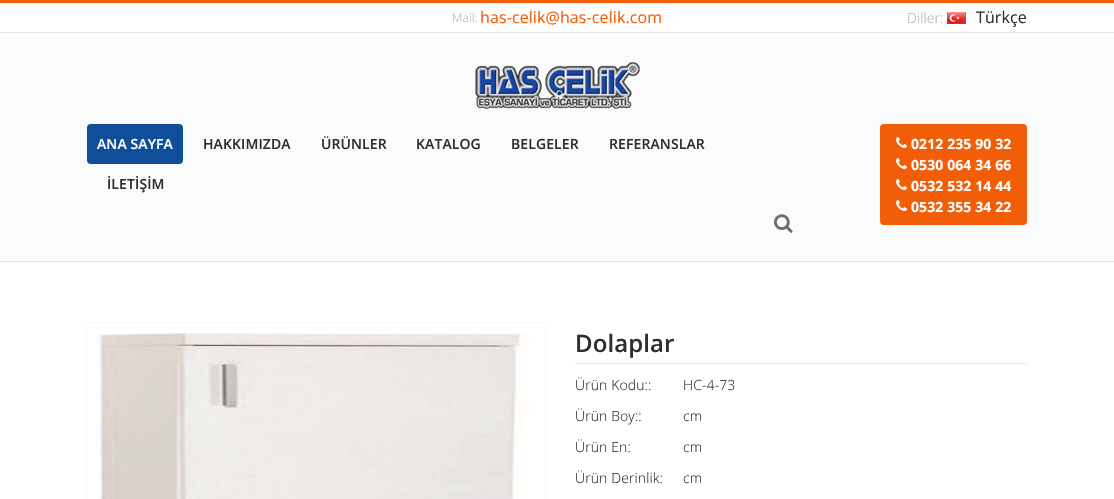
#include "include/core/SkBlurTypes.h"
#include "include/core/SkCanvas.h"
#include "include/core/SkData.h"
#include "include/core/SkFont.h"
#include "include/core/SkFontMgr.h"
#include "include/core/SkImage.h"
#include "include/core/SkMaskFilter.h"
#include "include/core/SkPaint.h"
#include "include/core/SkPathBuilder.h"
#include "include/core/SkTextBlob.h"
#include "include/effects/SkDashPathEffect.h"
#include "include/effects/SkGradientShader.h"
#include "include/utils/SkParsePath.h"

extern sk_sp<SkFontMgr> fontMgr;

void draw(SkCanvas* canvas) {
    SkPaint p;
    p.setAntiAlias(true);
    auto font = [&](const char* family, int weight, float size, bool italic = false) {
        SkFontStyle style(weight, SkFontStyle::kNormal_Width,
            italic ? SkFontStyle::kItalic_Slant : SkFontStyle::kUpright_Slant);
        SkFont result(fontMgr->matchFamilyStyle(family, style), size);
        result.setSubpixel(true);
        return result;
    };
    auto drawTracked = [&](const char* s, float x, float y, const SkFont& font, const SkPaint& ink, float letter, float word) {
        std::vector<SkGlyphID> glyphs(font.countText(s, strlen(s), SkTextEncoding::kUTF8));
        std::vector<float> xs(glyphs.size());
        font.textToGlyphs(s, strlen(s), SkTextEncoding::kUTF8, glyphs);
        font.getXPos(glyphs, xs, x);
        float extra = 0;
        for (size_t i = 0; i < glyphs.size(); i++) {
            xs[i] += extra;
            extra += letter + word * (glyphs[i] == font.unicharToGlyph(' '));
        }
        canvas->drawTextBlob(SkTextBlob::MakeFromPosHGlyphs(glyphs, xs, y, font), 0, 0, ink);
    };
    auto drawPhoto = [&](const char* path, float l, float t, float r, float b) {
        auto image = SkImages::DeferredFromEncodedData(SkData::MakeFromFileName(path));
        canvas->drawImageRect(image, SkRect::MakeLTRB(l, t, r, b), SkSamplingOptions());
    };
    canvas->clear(0xFFFFFFFF);
    p.setColor(0xFFF25D07);
    canvas->drawRect(SkRect::MakeLTRB(0, 0, 1114, 3), p);
    p.setColor(0xFFE2E6E7);
    canvas->drawRect(SkRect::MakeLTRB(0, 32, 1114, 33), p);
    auto font1 = font("Open Sans", 300, 12);
    p.setColor(0xFFB0B0B0);
    drawTracked("Mail:", 452, 22, font1, p, 0.1f, 0);
    auto font2 = font("Open Sans", 400, 16);
    p.setColor(0xFFF25D07);
    drawTracked("has-celik@has-celik.com", 480, 23, font2, p, 0.1f, 0);
    auto font3 = font("Open Sans", 300, 14);
    p.setColor(0xFFB0B0B0);
    drawTracked("Diller:", 907, 23, font3, p, 0.1f, 0);
    drawPhoto("media/1.png", 947, 12, 966, 24);
    p.setColor(0xFF2E2E2E);
    drawTracked("Türkçe", 976, 23, font2, p, 0.1f, 0);
    p.setColor(0xFFFAFBFB);
    canvas->drawRect(SkRect::MakeLTRB(0, 33, 1114, 261), p);
    drawPhoto("media/2.png", 475, 62, 640, 109);
    p.setColor(0xFF114E9A);
    canvas->drawRoundRect(SkRect::MakeLTRB(87, 124, 183, 164), 4, 4, p);
    auto font4 = font("Open Sans", 600, 14);
    p.setColor(0xFFFFFFFF);
    drawTracked("ANA SAYFA", 97, 149, font4, p, 0.1f, 0);
    p.setColor(0xFF2E2E2E);
    {
        const struct { const char* s; float x, y; } items[] = {
            {"HAKKIMIZDA", 203, 149},
            {"ÜRÜNLER", 321, 149},
            {"KATALOG", 416, 149},
            {"BELGELER", 511, 149},
            {"REFERANSLAR", 609, 149},
            {"İLETİŞİM", 107, 189},
        };
        for (auto [s, x, y] : items) {
            drawTracked(s, x, y, font4, p, 0.1f, 0);
        }
    }
    drawPhoto("media/3.png", 774, 214, 793, 233);
    p.setColor(0xFFF25D07);
    canvas->drawRoundRect(SkRect::MakeLTRB(880, 124, 1027, 225), 4, 4, p);
    drawPhoto("media/4.png", 896, 137, 907, 148);
    auto font5 = font("Open Sans", 700, 14);
    p.setColor(0xFFFFFFFF);
    drawTracked("0212 235 90 32", 911, 149, font5, p, 0.1f, 0);
    drawPhoto("media/4.png", 896, 158, 907, 169);
    drawTracked("0530 064 34 66", 911, 170, font5, p, 0.1f, 0);
    drawPhoto("media/4.png", 896, 179, 907, 190);
    drawTracked("0532 532 14 44", 911, 191, font5, p, 0.1f, 0);
    drawPhoto("media/4.png", 896, 200, 907, 211);
    drawTracked("0532 355 34 22", 911, 212, font5, p, 0.1f, 0);
    p.setColor(0xFFE2E2E2);
    canvas->drawRect(SkRect::MakeLTRB(0, 261, 1114, 262), p);
    p.setColor(0x4D000000);
    p.setMaskFilter(SkMaskFilter::MakeBlur(kNormal_SkBlurStyle, 0.5f));
    canvas->drawRoundRect(SkRect::MakeLTRB(87, 323, 545, 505), 4, 4, p);
    p.setMaskFilter(nullptr);
    p.setColor(0xFFFFFFFF);
    canvas->drawRect(SkRect::MakeLTRB(529, 333, 535, 499), p);
    p.setStyle(SkPaint::kStroke_Style);
    p.setStrokeWidth(10);
    canvas->drawPath(SkPathBuilder().moveTo(92, 328).lineTo(540, 328).lineTo(540, 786).lineTo(92, 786).close().detach(), p);
    drawPhoto("media/5.png", 97, 333, 529, 499);
    auto font6 = font("Open Sans", 600, 24);
    p.setStyle(SkPaint::kFill_Style);
    p.setColor(0xFF2E2E2E);
    drawTracked("Dolaplar", 575, 352, font6, p, 0.1f, 0);
    p.setColor(0xFFE2E6E7);
    canvas->drawRect(SkRect::MakeLTRB(575, 363, 1027, 364), p);
    p.setColor(0xFF2E2E2E);
    {
        const struct { const char* s; float x, y; } items[] = {
            {"Ürün Kodu::", 575, 390},
            {"HC-4-73", 683, 390},
            {"Ürün Boy::", 575, 421},
            {"cm", 683, 421},
            {"Ürün En:", 575, 452},
            {"cm", 683, 452},
            {"Ürün Derinlik:", 575, 483},
            {"cm", 683, 483},
        };
        for (auto [s, x, y] : items) {
            drawTracked(s, x, y, font3, p, 0.1f, 0);
        }
    }
}
